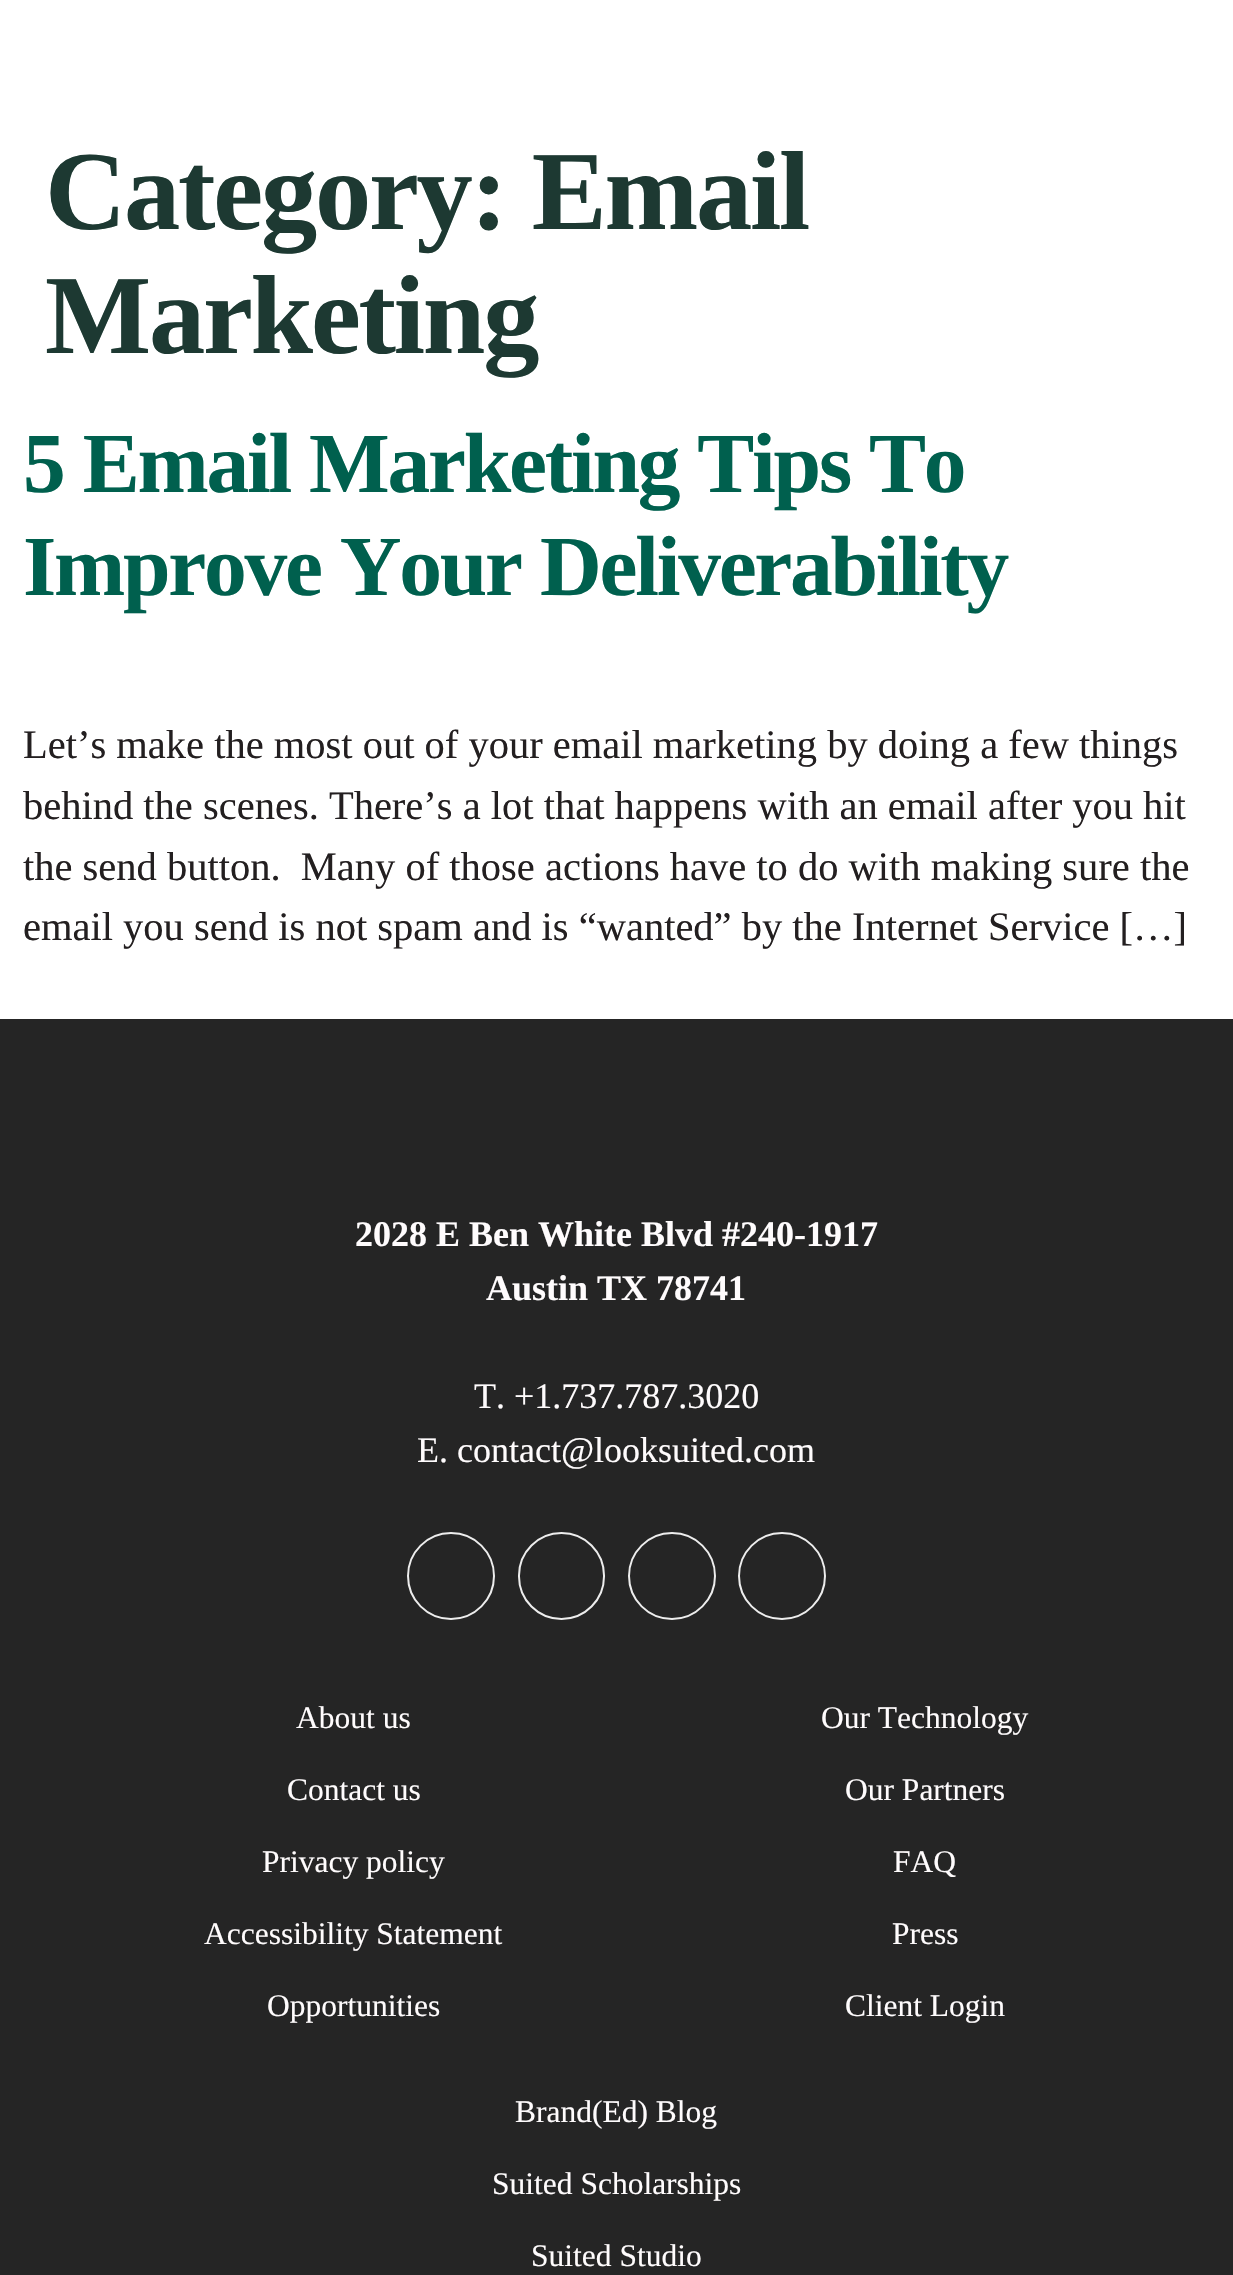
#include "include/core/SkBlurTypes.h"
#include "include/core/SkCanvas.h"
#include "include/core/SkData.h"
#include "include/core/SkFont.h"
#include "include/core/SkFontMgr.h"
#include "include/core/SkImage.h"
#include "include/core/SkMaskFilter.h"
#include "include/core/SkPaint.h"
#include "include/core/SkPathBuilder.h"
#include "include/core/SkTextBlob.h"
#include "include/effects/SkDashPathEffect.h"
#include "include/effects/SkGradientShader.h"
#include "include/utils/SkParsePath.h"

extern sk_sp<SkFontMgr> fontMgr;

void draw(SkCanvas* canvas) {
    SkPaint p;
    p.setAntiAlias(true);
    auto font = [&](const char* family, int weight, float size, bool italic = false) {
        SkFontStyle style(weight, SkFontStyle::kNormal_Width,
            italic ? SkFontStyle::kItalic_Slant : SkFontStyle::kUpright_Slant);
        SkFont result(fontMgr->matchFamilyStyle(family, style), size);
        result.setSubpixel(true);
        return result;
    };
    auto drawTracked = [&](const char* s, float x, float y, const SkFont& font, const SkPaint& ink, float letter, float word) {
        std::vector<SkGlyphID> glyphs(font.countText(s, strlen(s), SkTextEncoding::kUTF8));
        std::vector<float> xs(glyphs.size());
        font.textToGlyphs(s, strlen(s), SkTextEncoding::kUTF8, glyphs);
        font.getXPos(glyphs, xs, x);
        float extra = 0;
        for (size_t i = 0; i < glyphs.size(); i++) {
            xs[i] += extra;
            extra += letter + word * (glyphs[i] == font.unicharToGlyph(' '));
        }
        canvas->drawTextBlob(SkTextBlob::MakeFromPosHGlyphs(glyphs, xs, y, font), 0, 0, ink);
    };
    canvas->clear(0xFFFFFFFF);
    auto font1 = font("Liberation Serif", 700, 112.5f);
    p.setColor(0xFF1D3932);
    drawTracked("Category: Email", 45, 229, font1, p, -2.25f, 0);
    drawTracked("Marketing", 45, 353, font1, p, -2.25f, 0);
    auto font2 = font("Liberation Serif", 700, 85.5f);
    p.setColor(0xFF00604E);
    drawTracked("5 Email Marketing Tips To", 23, 492, font2, p, -2.25f, 0);
    drawTracked("Improve Your Deliverability", 23, 595, font2, p, -2.25f, 0);
    auto font3 = font("Liberation Serif", 400, 40.5f);
    p.setColor(0xFF231F20);
    {
        const struct { const char* s; float x, y; } items[] = {
            {"Let’s make the most out of your email marketing by doing a few things", 23, 758},
            {"behind the scenes. There’s a lot that happens with an email after you hit", 23, 819},
            {"the send button.  Many of those actions have to do with making sure the", 23, 880},
            {"email you send is not spam and is “wanted” by the Internet Service […]", 23, 940},
        };
        for (auto [s, x, y] : items) {
            canvas->drawString(s, x, y, font3, p);
        }
    }
    p.setColor(0xFF252525);
    canvas->drawRect(SkRect::MakeLTRB(0, 1019, 1233, 2275), p);
    auto font4 = font("Liberation Serif", 700, 36);
    p.setColor(0xFFFFFCFD);
    canvas->drawString("2028 E Ben White Blvd #240-1917", 355, 1246, font4, p);
    canvas->drawString("Austin TX 78741", 486, 1300, font4, p);
    auto font5 = font("Liberation Serif", 400, 36);
    canvas->drawString("T. +1.737.787.3020", 474, 1408, font5, p);
    canvas->drawString("E. contact@looksuited.com", 417, 1462, font5, p);
    p.setStyle(SkPaint::kStroke_Style);
    p.setStrokeWidth(2);
    p.setColor(0xFFEDEDED);
    canvas->drawCircle(451, 1576, 43, p);
    canvas->drawRoundRect(SkRect::MakeLTRB(519, 1533, 604, 1619), 42.5f, 42.5f, p);
    canvas->drawCircle(672, 1576, 43, p);
    canvas->drawCircle(782, 1576, 43, p);
    auto font6 = font("Liberation Serif", 400, 31.5f);
    p.setStyle(SkPaint::kFill_Style);
    p.setColor(0xFFFFFCFD);
    {
        const struct { const char* s; float x, y; } items[] = {
            {"About us", 296, 1728},
            {"Contact us", 287, 1800},
            {"Privacy policy", 262, 1872},
            {"Accessibility Statement", 204, 1944},
            {"Opportunities", 267, 2016},
            {"Our Technology", 821, 1728},
            {"Our Partners", 845, 1800},
            {"FAQ", 893, 1872},
            {"Press", 892, 1944},
            {"Client Login", 845, 2016},
            {"Brand(Ed) Blog", 515, 2122},
            {"Suited Scholarships", 492, 2194},
            {"Suited Studio", 531, 2266},
        };
        for (auto [s, x, y] : items) {
            canvas->drawString(s, x, y, font6, p);
        }
    }
}
